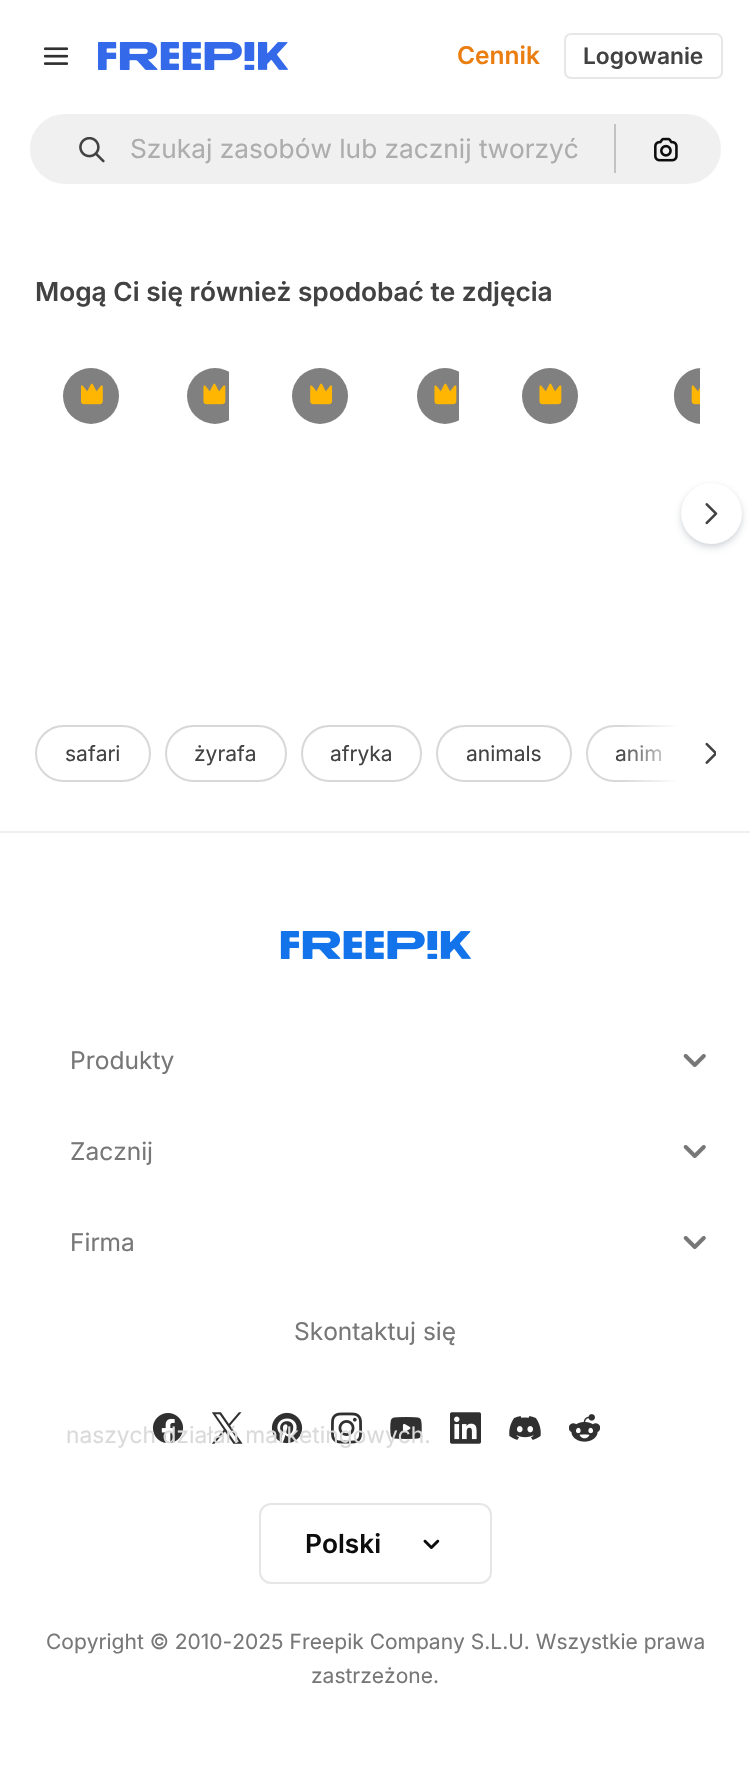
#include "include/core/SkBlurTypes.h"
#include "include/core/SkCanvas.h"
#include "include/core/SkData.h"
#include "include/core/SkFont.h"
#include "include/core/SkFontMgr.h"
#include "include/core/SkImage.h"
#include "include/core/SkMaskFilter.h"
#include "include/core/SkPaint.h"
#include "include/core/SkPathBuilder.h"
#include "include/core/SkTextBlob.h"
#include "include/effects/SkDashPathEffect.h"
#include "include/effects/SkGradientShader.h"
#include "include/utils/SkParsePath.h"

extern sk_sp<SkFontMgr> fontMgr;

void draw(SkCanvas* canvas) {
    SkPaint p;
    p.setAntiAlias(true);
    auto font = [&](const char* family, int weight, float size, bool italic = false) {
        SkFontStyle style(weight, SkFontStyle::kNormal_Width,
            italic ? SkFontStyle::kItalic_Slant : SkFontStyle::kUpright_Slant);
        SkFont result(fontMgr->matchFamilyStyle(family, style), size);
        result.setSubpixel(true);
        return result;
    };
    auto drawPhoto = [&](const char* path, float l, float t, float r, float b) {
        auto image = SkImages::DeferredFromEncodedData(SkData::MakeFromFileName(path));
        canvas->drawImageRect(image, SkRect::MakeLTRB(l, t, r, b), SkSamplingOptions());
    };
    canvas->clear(0xFFFFFFFF);
    drawPhoto("media/1.png", 44, 47, 68, 65);
    drawPhoto("media/2.png", 98, 42, 288, 70);
    auto font1 = font("Inter", 600, 24.5f);
    p.setColor(0xFFEA7E11);
    canvas->drawString("Cennik", 457, 64, font1, p);
    p.setStyle(SkPaint::kStroke_Style);
    p.setStrokeWidth(2);
    p.setColor(0xFFE7E7E7);
    canvas->drawRoundRect(SkRect::MakeLTRB(565, 34, 722, 78), 6, 6, p);
    auto font2 = font("Inter", 600, 22.75f);
    p.setStyle(SkPaint::kFill_Style);
    p.setColor(0xFF424242);
    canvas->drawString("Logowanie", 583, 64, font2, p);
    p.setColor(0xFFF0F0F0);
    canvas->drawRoundRect(SkRect::MakeLTRB(29, 113, 722, 185), 36, 36, p);
    p.setStyle(SkPaint::kStroke_Style);
    p.setColor(0xFFFFFFFF);
    canvas->drawRoundRect(SkRect::MakeLTRB(29, 113, 722, 185), 36, 36, p);
    drawPhoto("media/3.png", 79, 137, 105, 163);
    auto font3 = font("Inter", 400, 26.25f);
    p.setStyle(SkPaint::kFill_Style);
    p.setColor(0xFFADADAD);
    canvas->drawString("Szukaj zasobów lub zacznij tworzyć", 130, 158, font3, p);
    p.setColor(0xFFC3C3C3);
    canvas->drawRect(SkRect::MakeLTRB(614, 124, 616, 173), p);
    drawPhoto("media/4.png", 654, 137, 678, 162);
    auto font4 = font("Inter", 600, 26.25f);
    p.setColor(0xFF424242);
    canvas->drawString("Mogą Ci się również spodobać te zdjęcia", 35, 301, font4, p);
    p.setColor(0xFF808080);
    canvas->drawCircle(91, 396, 28, p);
    drawPhoto("media/5.png", 81, 383, 103, 405);
    canvas->save();
    canvas->clipPath(SkPathBuilder().moveTo(187, 340).lineTo(201, 340).cubicTo(216.5f, 340, 229, 352.5f, 229, 368).lineTo(229, 662).cubicTo(229, 677.5f, 216.5f, 690, 201, 690).lineTo(187, 690).cubicTo(171.5f, 690, 159, 677.5f, 159, 662).lineTo(159, 368).cubicTo(159, 352.5f, 171.5f, 340, 187, 340).close().detach(), true);
    canvas->drawCircle(215, 396, 28, p);
    canvas->restore();
    drawPhoto("media/6.png", 203, 383, 226, 405);
    canvas->drawCircle(320, 396, 28, p);
    drawPhoto("media/7.png", 310, 383, 333, 405);
    canvas->save();
    canvas->clipPath(SkPathBuilder().moveTo(417, 340).lineTo(431, 340).cubicTo(446.5f, 340, 459, 352.5f, 459, 368).lineTo(459, 662).cubicTo(459, 677.5f, 446.5f, 690, 431, 690).lineTo(417, 690).cubicTo(401.5f, 690, 389, 677.5f, 389, 662).lineTo(389, 368).cubicTo(389, 352.5f, 401.5f, 340, 417, 340).close().detach(), true);
    canvas->drawCircle(445, 396, 28, p);
    canvas->restore();
    drawPhoto("media/6.png", 434, 383, 457, 405);
    canvas->drawCircle(550, 396, 28, p);
    drawPhoto("media/6.png", 539, 383, 562, 405);
    canvas->drawPath(SkPathBuilder().moveTo(702, 368).lineTo(700, 368).lineTo(700, 424).lineTo(702, 424).cubicTo(686.5f, 424, 674, 411.5f, 674, 396).cubicTo(674, 380.5f, 686.5f, 368, 702, 368).close().detach(), p);
    drawPhoto("media/8.png", 691, 385, 700, 405);
    p.setColor(0x26374957);
    p.setMaskFilter(SkMaskFilter::MakeBlur(kNormal_SkBlurStyle, 4.5f));
    canvas->drawRoundRect(SkRect::MakeLTRB(681, 487, 742, 548), 30.5f, 30.5f, p);
    p.setMaskFilter(nullptr);
    p.setColor(0x1A374957);
    p.setMaskFilter(SkMaskFilter::MakeBlur(kNormal_SkBlurStyle, 2));
    canvas->drawRoundRect(SkRect::MakeLTRB(681, 485, 742, 546), 30.5f, 30.5f, p);
    p.setMaskFilter(nullptr);
    p.setColor(0xFFFFFFFF);
    canvas->drawCircle(711.5f, 513.5f, 30.5f, p);
    drawPhoto("media/9.png", 705, 503, 718, 525);
    p.setStyle(SkPaint::kStroke_Style);
    p.setColor(0xFFD8D8D8);
    canvas->drawRoundRect(SkRect::MakeLTRB(36, 726, 150, 781), 27.5f, 27.5f, p);
    auto font5 = font("Inter", 400, 21);
    p.setStyle(SkPaint::kFill_Style);
    p.setColor(0xFF424242);
    canvas->drawString("safari", 65, 761, font5, p);
    p.setStyle(SkPaint::kStroke_Style);
    p.setColor(0xFFD8D8D8);
    canvas->drawRoundRect(SkRect::MakeLTRB(166, 726, 286, 781), 27.5f, 27.5f, p);
    p.setStyle(SkPaint::kFill_Style);
    p.setColor(0xFF424242);
    canvas->drawString("żyrafa", 194, 761, font5, p);
    p.setStyle(SkPaint::kStroke_Style);
    p.setColor(0xFFD8D8D8);
    canvas->drawRoundRect(SkRect::MakeLTRB(302, 726, 421, 781), 27.5f, 27.5f, p);
    p.setStyle(SkPaint::kFill_Style);
    p.setColor(0xFF424242);
    canvas->drawString("afryka", 330, 761, font5, p);
    p.setStyle(SkPaint::kStroke_Style);
    p.setColor(0xFFD8D8D8);
    canvas->drawRoundRect(SkRect::MakeLTRB(437, 726, 571, 781), 27.5f, 27.5f, p);
    p.setStyle(SkPaint::kFill_Style);
    p.setColor(0xFF424242);
    canvas->drawString("animals", 466, 761, font5, p);
    p.setStyle(SkPaint::kStroke_Style);
    p.setColor(0xFFD8D8D8);
    canvas->drawRoundRect(SkRect::MakeLTRB(587, 726, 708, 781), 27.5f, 27.5f, p);
    p.setStyle(SkPaint::kFill_Style);
    p.setColor(0xFF424242);
    canvas->drawString("anim", 615, 761, font5, p);
    p.setColor(0xFFFFFFFF);
    canvas->drawRect(SkRect::MakeLTRB(681, 725, 709, 782), p);
    {
        const SkColor colors[] = {0xFFFFFFFF, 0x00FFFFFF};
        const float stops[] = {0, 1};
        const SkPoint ends[] = {{681, 753}, {620, 753}};
        p.setShader(SkGradientShader::MakeLinear(ends, colors, stops, 2, SkTileMode::kClamp));
        p.setAlpha(255);
    }
    canvas->drawRect(SkRect::MakeLTRB(621, 725, 681, 782), p);
    drawPhoto("media/10.png", 705, 742, 716, 764);
    p.setShader(nullptr);
    p.setColor(0xFFF0F0F0);
    canvas->drawRect(SkRect::MakeLTRB(0, 831, 750, 833), p);
    drawPhoto("media/11.png", 280, 931, 471, 959);
    auto font6 = font("Inter", 400, 24.5f);
    p.setColor(0xFF777777);
    canvas->drawString("Produkty", 70, 1069, font6, p);
    drawPhoto("media/12.png", 683, 1054, 706, 1067);
    canvas->drawString("Zacznij", 70, 1160, font6, p);
    drawPhoto("media/12.png", 683, 1145, 706, 1158);
    canvas->drawString("Firma", 70, 1251, font6, p);
    drawPhoto("media/12.png", 683, 1236, 706, 1249);
    canvas->drawString("Skontaktuj się", 294, 1340, font6, p);
    drawPhoto("media/13.png", 152, 1413, 184, 1443);
    drawPhoto("media/14.png", 212, 1412, 243, 1444);
    drawPhoto("media/15.png", 271, 1412, 303, 1444);
    drawPhoto("media/16.png", 331, 1412, 362, 1444);
    drawPhoto("media/17.png", 390, 1417, 422, 1439);
    drawPhoto("media/18.png", 450, 1412, 481, 1444);
    drawPhoto("media/19.png", 509, 1416, 541, 1440);
    drawPhoto("media/20.png", 569, 1414, 600, 1442);
    p.setStyle(SkPaint::kStroke_Style);
    p.setColor(0xFFE6E6E6);
    canvas->drawRoundRect(SkRect::MakeLTRB(260, 1504, 491, 1583), 11, 11, p);
    p.setStyle(SkPaint::kFill_Style);
    p.setColor(0xFF0D0D0D);
    canvas->drawString("Polski", 305, 1553, font4, p);
    drawPhoto("media/21.png", 423, 1539, 440, 1549);
    p.setColor(0xFF777777);
    canvas->drawString("Copyright © 2010-2025 Freepik Company S.L.U. Wszystkie prawa", 46, 1649, font5, p);
    canvas->drawString("zastrzeżone.", 311, 1683, font5, p);
    auto font7 = font("Inter", 400, 22.75f);
    p.setColor(0xFFDADADA);
    canvas->drawString("naszych działań marketingowych.", 66, 1443, font7, p);
}
